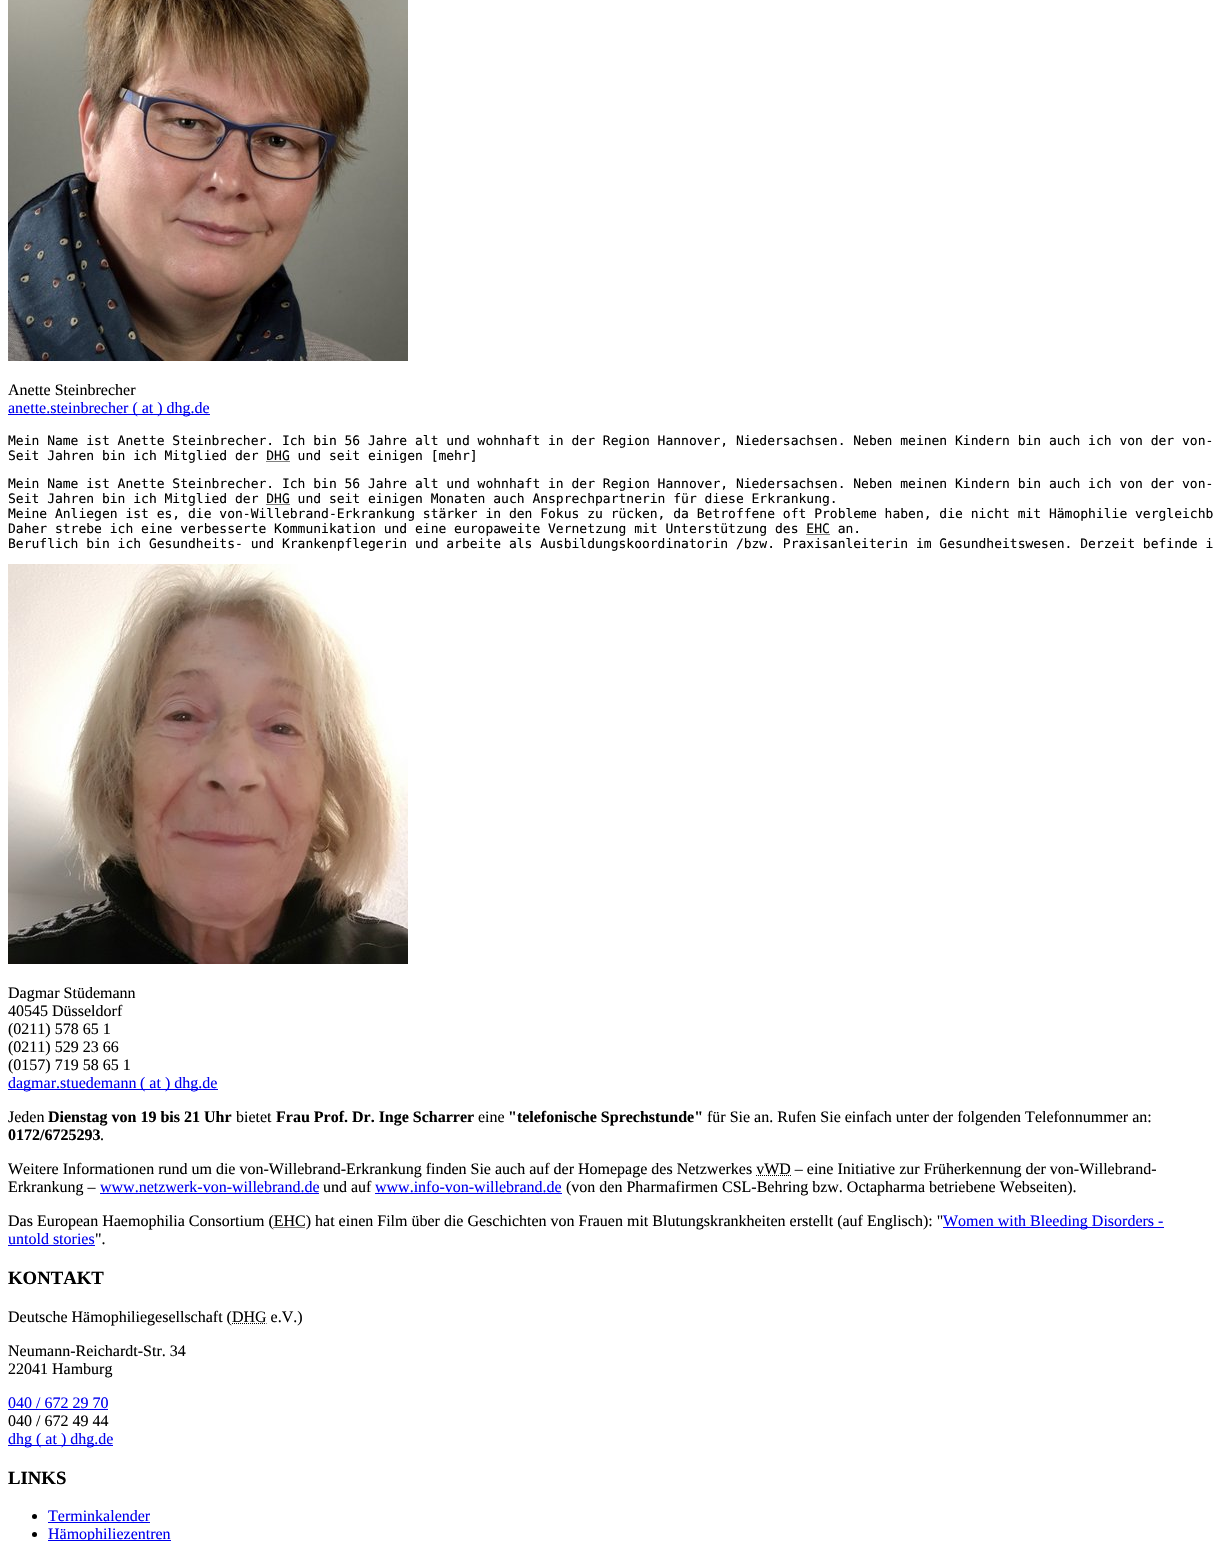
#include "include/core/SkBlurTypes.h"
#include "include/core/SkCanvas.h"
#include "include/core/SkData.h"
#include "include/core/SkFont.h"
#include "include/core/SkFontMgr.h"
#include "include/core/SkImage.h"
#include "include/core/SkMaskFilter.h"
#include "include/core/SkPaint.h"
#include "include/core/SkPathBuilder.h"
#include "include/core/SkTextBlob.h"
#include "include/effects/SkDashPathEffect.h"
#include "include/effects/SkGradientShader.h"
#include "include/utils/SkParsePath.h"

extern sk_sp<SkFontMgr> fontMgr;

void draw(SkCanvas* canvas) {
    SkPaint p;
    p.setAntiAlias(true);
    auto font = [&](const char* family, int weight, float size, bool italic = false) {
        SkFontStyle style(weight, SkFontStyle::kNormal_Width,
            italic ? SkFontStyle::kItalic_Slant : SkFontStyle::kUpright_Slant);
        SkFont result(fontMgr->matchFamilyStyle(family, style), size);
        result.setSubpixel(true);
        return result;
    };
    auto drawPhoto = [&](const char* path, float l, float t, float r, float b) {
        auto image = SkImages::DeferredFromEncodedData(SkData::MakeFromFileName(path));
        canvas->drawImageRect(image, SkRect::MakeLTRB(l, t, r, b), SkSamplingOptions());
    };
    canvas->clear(0xFFFFFFFF);
    drawPhoto("media/1.png", 8, 0, 408, 361);
    auto font1 = font("Liberation Serif", 400, 16);
    p.setColor(0xFF000000);
    canvas->drawString("Anette Steinbrecher", 8, 395, font1, p);
    p.setColor(0xFF0000EE);
    canvas->drawRect(SkRect::MakeLTRB(8, 414, 210, 415), p);
    canvas->drawString("anette.steinbrecher ( at ) dhg.de", 8, 413, font1, p);
    auto font2 = font("DejaVu Sans Mono", 400, 13);
    p.setColor(0xFF000000);
    canvas->drawString("Mein Name ist Anette Steinbrecher. Ich bin 56 Jahre alt und wohnhaft in der Region Hannover, Niedersachsen. Neben meinen Kindern bin auch ich von der von-", 8, 445, font2, p);
    canvas->drawString("Seit Jahren bin ich Mitglied der DHG und seit einigen [mehr]", 8, 460, font2, p);
    p.setStyle(SkPaint::kStroke_Style);
    p.setStrokeWidth(1);
    p.setPathEffect(SkDashPathEffect::Make({{1, 1}}, 0));
    canvas->drawPath(SkPathBuilder().moveTo(266.5f, 461.5f).lineTo(290, 461.5f).detach(), p);
    p.setPathEffect(nullptr);
    p.setStyle(SkPaint::kFill_Style);
    canvas->drawString("Mein Name ist Anette Steinbrecher. Ich bin 56 Jahre alt und wohnhaft in der Region Hannover, Niedersachsen. Neben meinen Kindern bin auch ich von der von-", 8, 488, font2, p);
    canvas->drawString("Seit Jahren bin ich Mitglied der DHG und seit einigen Monaten auch Ansprechpartnerin für diese Erkrankung.", 8, 503, font2, p);
    p.setStyle(SkPaint::kStroke_Style);
    p.setPathEffect(SkDashPathEffect::Make({{1, 1}}, 0));
    canvas->drawPath(SkPathBuilder().moveTo(266.5f, 504.5f).lineTo(290, 504.5f).detach(), p);
    p.setPathEffect(nullptr);
    p.setStyle(SkPaint::kFill_Style);
    canvas->drawString("Meine Anliegen ist es, die von-Willebrand-Erkrankung stärker in den Fokus zu rücken, da Betroffene oft Probleme haben, die nicht mit Hämophilie vergleichb", 8, 518, font2, p);
    canvas->drawString("Daher strebe ich eine verbesserte Kommunikation und eine europaweite Vernetzung mit Unterstützung des EHC an.", 8, 533, font2, p);
    p.setStyle(SkPaint::kStroke_Style);
    p.setPathEffect(SkDashPathEffect::Make({{1, 1}}, 0));
    canvas->drawPath(SkPathBuilder().moveTo(806.5f, 534.5f).lineTo(830, 534.5f).detach(), p);
    p.setPathEffect(nullptr);
    p.setStyle(SkPaint::kFill_Style);
    canvas->drawString("Beruflich bin ich Gesundheits- und Krankenpflegerin und arbeite als Ausbildungskoordinatorin /bzw. Praxisanleiterin im Gesundheitswesen. Derzeit befinde i", 8, 548, font2, p);
    drawPhoto("media/2.png", 8, 564, 408, 964);
    {
        const struct { const char* s; float x, y; } items[] = {
            {"Dagmar Stüdemann", 8, 998},
            {"40545 Düsseldorf", 8, 1016},
            {"(0211) 578 65 1", 8, 1034},
            {"(0211) 529 23 66", 8, 1052},
            {"(0157) 719 58 65 1", 8, 1070},
        };
        for (auto [s, x, y] : items) {
            canvas->drawString(s, x, y, font1, p);
        }
    }
    p.setColor(0xFF0000EE);
    canvas->drawRect(SkRect::MakeLTRB(8, 1089, 136, 1090), p);
    canvas->drawString("dagmar.stuedemann", 8, 1088, font1, p);
    canvas->drawRect(SkRect::MakeLTRB(136, 1089, 218, 1090), p);
    canvas->drawString("( at ) dhg.de", 140, 1088, font1, p);
    p.setColor(0xFF000000);
    canvas->drawString("Jeden", 8, 1122, font1, p);
    auto font3 = font("Liberation Serif", 700, 16);
    canvas->drawString("Dienstag von 19 bis 21 Uhr", 48, 1122, font3, p);
    canvas->drawString("bietet", 236, 1122, font1, p);
    canvas->drawString("Frau Prof. Dr. Inge Scharrer", 276, 1122, font3, p);
    canvas->drawString("eine", 478, 1122, font1, p);
    canvas->drawString("\"telefonische Sprechstunde\"", 508, 1122, font3, p);
    canvas->drawString("für Sie an. Rufen Sie einfach unter der folgenden Telefonnummer an:", 707, 1122, font1, p);
    canvas->drawString("0172/6725293", 8, 1140, font3, p);
    canvas->drawString(".", 100, 1140, font1, p);
    canvas->drawString("Weitere Informationen rund um die von-Willebrand-Erkrankung finden Sie auch auf der Homepage des Netzwerkes vWD – eine Initiative zur Früherkennung der von-Willebrand-", 8, 1174, font1, p);
    p.setStyle(SkPaint::kStroke_Style);
    p.setPathEffect(SkDashPathEffect::Make({{1, 1}}, 0));
    canvas->drawPath(SkPathBuilder().moveTo(756, 1175.5f).lineTo(791, 1175.5f).detach(), p);
    p.setPathEffect(nullptr);
    p.setStyle(SkPaint::kFill_Style);
    canvas->drawString("Erkrankung –", 8, 1192, font1, p);
    p.setColor(0xFF0000EE);
    canvas->drawString("www.netzwerk-von-willebrand.de", 100, 1192, font1, p);
    canvas->drawRect(SkRect::MakeLTRB(100, 1193, 319, 1194), p);
    p.setColor(0xFF000000);
    canvas->drawString("und auf", 323, 1192, font1, p);
    p.setColor(0xFF0000EE);
    canvas->drawString("www.info-von-willebrand.de", 375, 1192, font1, p);
    canvas->drawRect(SkRect::MakeLTRB(375, 1193, 562, 1194), p);
    p.setColor(0xFF000000);
    canvas->drawString("(von den Pharmafirmen CSL-Behring bzw. Octapharma betriebene Webseiten).", 566, 1192, font1, p);
    canvas->drawString("Das European Haemophilia Consortium (EHC) hat einen Film über die Geschichten von Frauen mit Blutungskrankheiten erstellt (auf Englisch): \"", 8, 1226, font1, p);
    p.setColor(0xFF0000EE);
    canvas->drawRect(SkRect::MakeLTRB(943, 1227, 1164, 1228), p);
    canvas->drawString("Women with Bleeding Disorders -", 943, 1226, font1, p);
    p.setStyle(SkPaint::kStroke_Style);
    p.setColor(0xFF000000);
    p.setPathEffect(SkDashPathEffect::Make({{1, 1}}, 0));
    canvas->drawPath(SkPathBuilder().moveTo(273.5f, 1227.5f).lineTo(305.5f, 1227.5f).detach(), p);
    p.setPathEffect(nullptr);
    p.setStyle(SkPaint::kFill_Style);
    p.setColor(0xFF0000EE);
    canvas->drawString("untold stories", 8, 1244, font1, p);
    canvas->drawRect(SkRect::MakeLTRB(8, 1245, 95, 1246), p);
    p.setColor(0xFF000000);
    canvas->drawString("\".", 95, 1244, font1, p);
    auto font4 = font("Liberation Serif", 700, 18.75f);
    canvas->drawString("KONTAKT", 8, 1284, font4, p);
    canvas->drawString("Deutsche Hämophiliegesellschaft (DHG e.V.)", 8, 1322, font1, p);
    p.setStyle(SkPaint::kStroke_Style);
    p.setPathEffect(SkDashPathEffect::Make({{1, 1}}, 0));
    canvas->drawPath(SkPathBuilder().moveTo(232, 1323.5f).lineTo(266.5f, 1323.5f).detach(), p);
    p.setPathEffect(nullptr);
    p.setStyle(SkPaint::kFill_Style);
    canvas->drawString("Neumann-Reichardt-Str. 34", 8, 1356, font1, p);
    canvas->drawString("22041 Hamburg", 8, 1374, font1, p);
    p.setColor(0xFF0000EE);
    canvas->drawString("040 / 672 29 70", 8, 1408, font1, p);
    canvas->drawRect(SkRect::MakeLTRB(8, 1409, 108, 1410), p);
    p.setColor(0xFF000000);
    canvas->drawString("040 / 672 49 44", 8, 1426, font1, p);
    p.setColor(0xFF0000EE);
    canvas->drawRect(SkRect::MakeLTRB(8, 1445, 113, 1446), p);
    canvas->drawString("dhg ( at ) dhg.de", 8, 1444, font1, p);
    p.setColor(0xFF000000);
    canvas->drawString("LINKS", 8, 1484, font4, p);
    canvas->drawCircle(34.5f, 1516.5f, 2.5f, p);
    p.setColor(0xFF0000EE);
    canvas->drawString("Terminkalender", 48, 1521, font1, p);
    canvas->drawRect(SkRect::MakeLTRB(48, 1522, 150, 1523), p);
    p.setColor(0xFF000000);
    canvas->drawCircle(34.5f, 1534.5f, 2.5f, p);
    p.setColor(0xFF0000EE);
    canvas->drawRect(SkRect::MakeLTRB(48, 1540, 171, 1541), p);
    canvas->drawString("Hämophiliezentren", 48, 1539, font1, p);
}
